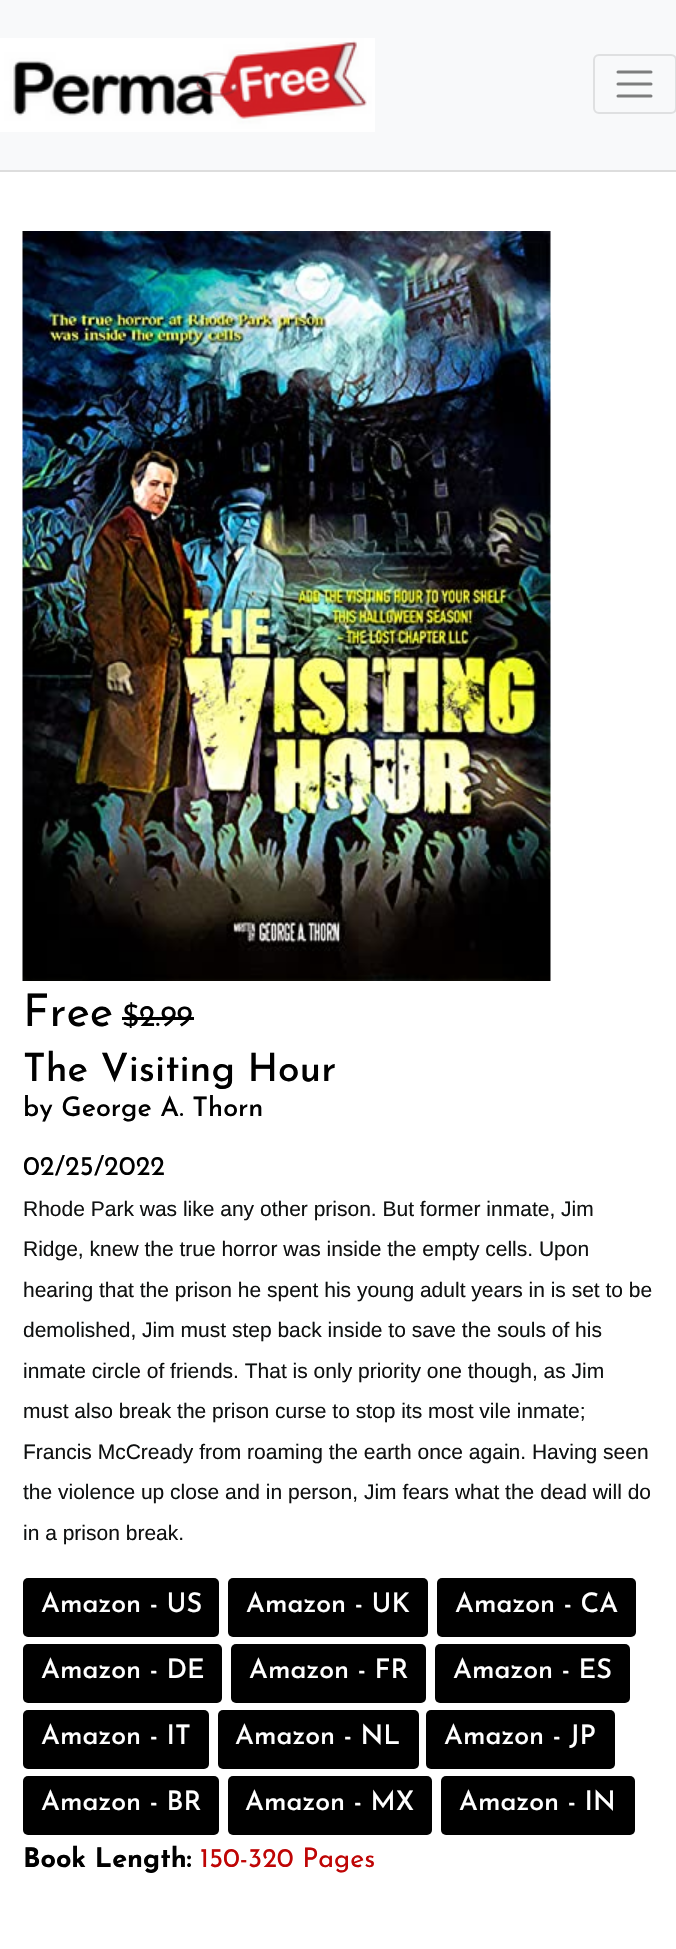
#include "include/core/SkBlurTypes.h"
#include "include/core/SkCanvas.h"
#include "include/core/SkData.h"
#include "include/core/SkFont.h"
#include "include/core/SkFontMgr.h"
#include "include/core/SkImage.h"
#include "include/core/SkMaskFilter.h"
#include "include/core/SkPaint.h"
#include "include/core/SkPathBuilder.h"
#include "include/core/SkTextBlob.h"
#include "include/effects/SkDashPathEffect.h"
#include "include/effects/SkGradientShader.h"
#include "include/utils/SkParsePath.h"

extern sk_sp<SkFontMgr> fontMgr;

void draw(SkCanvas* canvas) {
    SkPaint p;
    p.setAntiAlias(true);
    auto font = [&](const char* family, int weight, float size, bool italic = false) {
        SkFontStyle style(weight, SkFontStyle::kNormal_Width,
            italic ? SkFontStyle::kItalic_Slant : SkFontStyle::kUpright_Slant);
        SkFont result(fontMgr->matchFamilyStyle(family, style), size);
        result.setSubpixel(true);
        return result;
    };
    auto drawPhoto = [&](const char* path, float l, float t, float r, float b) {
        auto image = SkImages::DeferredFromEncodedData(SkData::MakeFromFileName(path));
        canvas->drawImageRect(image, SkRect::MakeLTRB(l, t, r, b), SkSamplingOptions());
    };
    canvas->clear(0xFFFFFFFF);
    p.setColor(0xFFDDDDDD);
    canvas->drawRect(SkRect::MakeLTRB(0, 170, 676, 172), p);
    p.setColor(0xFFF8F9FA);
    canvas->drawRect(SkRect::MakeLTRB(0, 0, 676, 170), p);
    drawPhoto("media/1.png", 0, 38, 375, 132);
    p.setStyle(SkPaint::kStroke_Style);
    p.setStrokeWidth(2);
    p.setColor(0xFFDFE0E1);
    canvas->drawRoundRect(SkRect::MakeLTRB(594, 55, 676, 113), 5, 5, p);
    p.setStrokeWidth(3);
    p.setStrokeCap(SkPaint::kRound_Cap);
    p.setColor(0xFF7C7D7D);
    canvas->drawPath(SkPathBuilder().moveTo(618, 72).lineTo(651, 72).moveTo(618, 84).lineTo(651, 84).moveTo(618, 96).lineTo(651, 96).detach(), p);
    drawPhoto("media/2.png", 22, 231, 551, 981);
    auto font1 = font("Josefin Sans", 400, 45);
    p.setStyle(SkPaint::kFill_Style);
    p.setColor(0xFF000000);
    canvas->drawString("Free", 23, 1026, font1, p);
    auto font2 = font("Josefin Sans", 400, 30);
    canvas->drawString("$2.99", 122, 1026, font2, p);
    canvas->drawRect(SkRect::MakeLTRB(122, 1017, 194, 1020), p);
    auto font3 = font("Josefin Sans", 500, 39);
    canvas->drawString("The Visiting Hour", 23, 1081, font3, p);
    auto font4 = font("Josefin Sans", 500, 27);
    canvas->drawString("by George A. Thorn", 23, 1116, font4, p);
    auto font5 = font("Josefin Sans", 400, 27);
    canvas->drawString("02/25/2022", 23, 1175, font5, p);
    auto font6 = font("Liberation Sans", 400, 21);
    p.setColor(0xFF0F1111);
    {
        const struct { const char* s; float x, y; } items[] = {
            {"Rhode Park was like any other prison. But former inmate, Jim", 23, 1216},
            {"Ridge, knew the true horror was inside the empty cells. Upon", 23, 1256},
            {"hearing that the prison he spent his young adult years in is set to be", 23, 1297},
            {"demolished, Jim must step back inside to save the souls of his", 23, 1337},
            {"inmate circle of friends. That is only priority one though, as Jim", 23, 1378},
            {"must also break the prison curse to stop its most vile inmate;", 23, 1418},
            {"Francis McCready from roaming the earth once again. Having seen", 23, 1459},
            {"the violence up close and in person, Jim fears what the dead will do", 23, 1499},
            {"in a prison break.", 23, 1540},
        };
        for (auto [s, x, y] : items) {
            canvas->drawString(s, x, y, font6, p);
        }
    }
    p.setColor(0xFF000000);
    canvas->drawRoundRect(SkRect::MakeLTRB(23, 1578, 219, 1637), 5, 5, p);
    p.setColor(0xFFFFFFFF);
    canvas->drawString("Amazon - US", 41, 1612, font4, p);
    p.setColor(0xFF000000);
    canvas->drawRoundRect(SkRect::MakeLTRB(228, 1578, 428, 1637), 5, 5, p);
    p.setColor(0xFFFFFFFF);
    canvas->drawString("Amazon - UK", 246, 1612, font4, p);
    p.setColor(0xFF000000);
    canvas->drawRoundRect(SkRect::MakeLTRB(437, 1578, 636, 1637), 5, 5, p);
    p.setColor(0xFFFFFFFF);
    canvas->drawString("Amazon - CA", 455, 1612, font4, p);
    p.setColor(0xFF000000);
    canvas->drawRoundRect(SkRect::MakeLTRB(23, 1644, 222, 1703), 5, 5, p);
    p.setColor(0xFFFFFFFF);
    canvas->drawString("Amazon - DE", 41, 1678, font4, p);
    p.setColor(0xFF000000);
    canvas->drawRoundRect(SkRect::MakeLTRB(231, 1644, 426, 1703), 5, 5, p);
    p.setColor(0xFFFFFFFF);
    canvas->drawString("Amazon - FR", 249, 1678, font4, p);
    p.setColor(0xFF000000);
    canvas->drawRoundRect(SkRect::MakeLTRB(435, 1644, 630, 1703), 5, 5, p);
    p.setColor(0xFFFFFFFF);
    canvas->drawString("Amazon - ES", 453, 1678, font4, p);
    p.setColor(0xFF000000);
    canvas->drawRoundRect(SkRect::MakeLTRB(23, 1710, 209, 1769), 5, 5, p);
    p.setColor(0xFFFFFFFF);
    canvas->drawString("Amazon - IT", 41, 1744, font4, p);
    p.setColor(0xFF000000);
    canvas->drawRoundRect(SkRect::MakeLTRB(218, 1710, 419, 1769), 5, 5, p);
    p.setColor(0xFFFFFFFF);
    canvas->drawString("Amazon - NL", 235, 1744, font4, p);
    p.setColor(0xFF000000);
    canvas->drawRoundRect(SkRect::MakeLTRB(426, 1710, 615, 1769), 5, 5, p);
    p.setColor(0xFFFFFFFF);
    canvas->drawString("Amazon - JP", 444, 1744, font4, p);
    p.setColor(0xFF000000);
    canvas->drawRoundRect(SkRect::MakeLTRB(23, 1776, 219, 1835), 5, 5, p);
    p.setColor(0xFFFFFFFF);
    canvas->drawString("Amazon - BR", 41, 1810, font4, p);
    p.setColor(0xFF000000);
    canvas->drawRoundRect(SkRect::MakeLTRB(228, 1776, 432, 1835), 5, 5, p);
    p.setColor(0xFFFFFFFF);
    canvas->drawString("Amazon - MX", 245, 1810, font4, p);
    p.setColor(0xFF000000);
    canvas->drawRoundRect(SkRect::MakeLTRB(441, 1776, 635, 1835), 5, 5, p);
    p.setColor(0xFFFFFFFF);
    canvas->drawString("Amazon - IN", 459, 1810, font4, p);
    auto font7 = font("Josefin Sans", 700, 27);
    p.setColor(0xFF000000);
    canvas->drawString("Book Length:", 23, 1867, font7, p);
    p.setColor(0xFFBF0505);
    canvas->drawString("150-320 Pages", 200, 1867, font5, p);
}
